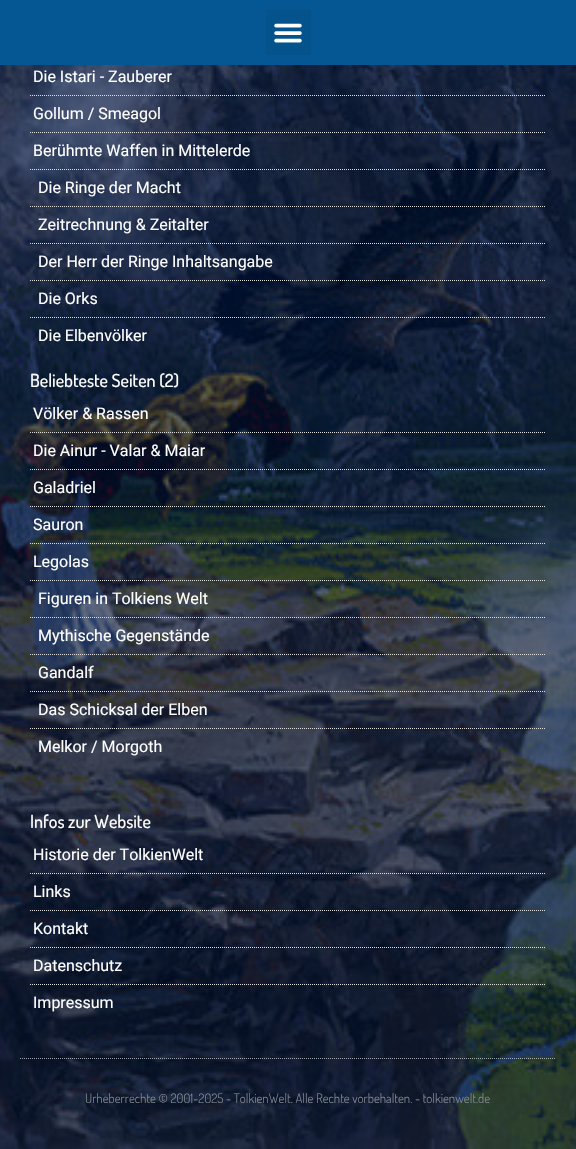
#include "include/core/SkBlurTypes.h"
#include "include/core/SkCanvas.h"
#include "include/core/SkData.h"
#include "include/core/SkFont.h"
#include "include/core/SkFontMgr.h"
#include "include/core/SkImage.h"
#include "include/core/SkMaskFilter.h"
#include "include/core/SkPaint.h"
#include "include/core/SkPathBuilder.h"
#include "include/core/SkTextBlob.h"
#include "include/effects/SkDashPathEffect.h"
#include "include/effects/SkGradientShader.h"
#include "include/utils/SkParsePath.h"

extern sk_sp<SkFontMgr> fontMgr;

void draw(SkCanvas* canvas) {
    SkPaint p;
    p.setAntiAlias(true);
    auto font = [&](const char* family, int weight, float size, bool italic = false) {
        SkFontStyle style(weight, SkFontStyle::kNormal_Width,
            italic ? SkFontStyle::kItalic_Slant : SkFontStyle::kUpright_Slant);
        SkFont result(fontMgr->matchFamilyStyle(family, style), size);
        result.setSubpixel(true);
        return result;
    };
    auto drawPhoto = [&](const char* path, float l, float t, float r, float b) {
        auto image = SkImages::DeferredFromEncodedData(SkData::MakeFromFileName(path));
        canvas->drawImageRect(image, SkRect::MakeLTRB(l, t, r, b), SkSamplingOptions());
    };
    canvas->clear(0xFFFFFFFF);
    p.setColor(0xFF045793);
    canvas->drawRect(SkRect::MakeLTRB(0, 0, 576, 65), p);
    p.setColor(0xFF04538C);
    canvas->drawRect(SkRect::MakeLTRB(266, 10, 311, 55), p);
    drawPhoto("media/1.png", 274, 23, 302, 43);
    drawPhoto("media/2.png", 0, 65, 576, 1149);
    auto font1 = font("Roboto", 400, 16);
    p.setColor(0xFFFFFFFF);
    canvas->drawString("Die Istari - Zauberer", 33, 82, font1, p);
    p.setStyle(SkPaint::kStroke_Style);
    p.setStrokeWidth(1);
    p.setColor(0xFFDDDDDD);
    p.setPathEffect(SkDashPathEffect::Make({{1, 1}}, 0));
    canvas->drawPath(SkPathBuilder().moveTo(30, 95.5f).lineTo(546, 95.5f).detach(), p);
    p.setPathEffect(nullptr);
    p.setStyle(SkPaint::kFill_Style);
    p.setColor(0xFFFFFFFF);
    canvas->drawString("Gollum / Smeagol", 33, 119, font1, p);
    p.setStyle(SkPaint::kStroke_Style);
    p.setColor(0xFFDDDDDD);
    p.setPathEffect(SkDashPathEffect::Make({{1, 1}}, 0));
    canvas->drawPath(SkPathBuilder().moveTo(30, 132.5f).lineTo(546, 132.5f).detach(), p);
    p.setPathEffect(nullptr);
    p.setStyle(SkPaint::kFill_Style);
    p.setColor(0xFFFFFFFF);
    canvas->drawString("Berühmte Waffen in Mittelerde", 33, 156, font1, p);
    p.setStyle(SkPaint::kStroke_Style);
    p.setColor(0xFFDDDDDD);
    p.setPathEffect(SkDashPathEffect::Make({{1, 1}}, 0));
    canvas->drawPath(SkPathBuilder().moveTo(30, 169.5f).lineTo(546, 169.5f).detach(), p);
    p.setPathEffect(nullptr);
    p.setStyle(SkPaint::kFill_Style);
    p.setColor(0xFFFFFFFF);
    canvas->drawString("Die Ringe der Macht", 38, 193, font1, p);
    p.setStyle(SkPaint::kStroke_Style);
    p.setColor(0xFFDDDDDD);
    p.setPathEffect(SkDashPathEffect::Make({{1, 1}}, 0));
    canvas->drawPath(SkPathBuilder().moveTo(30, 206.5f).lineTo(546, 206.5f).detach(), p);
    p.setPathEffect(nullptr);
    p.setStyle(SkPaint::kFill_Style);
    p.setColor(0xFFFFFFFF);
    canvas->drawString("Zeitrechnung & Zeitalter", 38, 230, font1, p);
    p.setStyle(SkPaint::kStroke_Style);
    p.setColor(0xFFDDDDDD);
    p.setPathEffect(SkDashPathEffect::Make({{1, 1}}, 0));
    canvas->drawPath(SkPathBuilder().moveTo(30, 243.5f).lineTo(546, 243.5f).detach(), p);
    p.setPathEffect(nullptr);
    p.setStyle(SkPaint::kFill_Style);
    p.setColor(0xFFFFFFFF);
    canvas->drawString("Der Herr der Ringe Inhaltsangabe", 38, 267, font1, p);
    p.setStyle(SkPaint::kStroke_Style);
    p.setColor(0xFFDDDDDD);
    p.setPathEffect(SkDashPathEffect::Make({{1, 1}}, 0));
    canvas->drawPath(SkPathBuilder().moveTo(30, 280.5f).lineTo(546, 280.5f).detach(), p);
    p.setPathEffect(nullptr);
    p.setStyle(SkPaint::kFill_Style);
    p.setColor(0xFFFFFFFF);
    canvas->drawString("Die Orks", 38, 304, font1, p);
    p.setStyle(SkPaint::kStroke_Style);
    p.setColor(0xFFDDDDDD);
    p.setPathEffect(SkDashPathEffect::Make({{1, 1}}, 0));
    canvas->drawPath(SkPathBuilder().moveTo(30, 317.5f).lineTo(546, 317.5f).detach(), p);
    p.setPathEffect(nullptr);
    p.setStyle(SkPaint::kFill_Style);
    p.setColor(0xFFFFFFFF);
    canvas->drawString("Die Elbenvölker", 38, 341, font1, p);
    auto font2 = font("Dosis", 500, 18);
    canvas->drawString("Beliebteste Seiten (2)", 30, 387, font2, p);
    canvas->drawString("Völker & Rassen", 33, 419, font1, p);
    p.setStyle(SkPaint::kStroke_Style);
    p.setColor(0xFFDDDDDD);
    p.setPathEffect(SkDashPathEffect::Make({{1, 1}}, 0));
    canvas->drawPath(SkPathBuilder().moveTo(30, 432.5f).lineTo(546, 432.5f).detach(), p);
    p.setPathEffect(nullptr);
    p.setStyle(SkPaint::kFill_Style);
    p.setColor(0xFFFFFFFF);
    canvas->drawString("Die Ainur - Valar & Maiar", 33, 456, font1, p);
    p.setStyle(SkPaint::kStroke_Style);
    p.setColor(0xFFDDDDDD);
    p.setPathEffect(SkDashPathEffect::Make({{1, 1}}, 0));
    canvas->drawPath(SkPathBuilder().moveTo(30, 469.5f).lineTo(546, 469.5f).detach(), p);
    p.setPathEffect(nullptr);
    p.setStyle(SkPaint::kFill_Style);
    p.setColor(0xFFFFFFFF);
    canvas->drawString("Galadriel", 33, 493, font1, p);
    p.setStyle(SkPaint::kStroke_Style);
    p.setColor(0xFFDDDDDD);
    p.setPathEffect(SkDashPathEffect::Make({{1, 1}}, 0));
    canvas->drawPath(SkPathBuilder().moveTo(30, 506.5f).lineTo(546, 506.5f).detach(), p);
    p.setPathEffect(nullptr);
    p.setStyle(SkPaint::kFill_Style);
    p.setColor(0xFFFFFFFF);
    canvas->drawString("Sauron", 33, 530, font1, p);
    p.setStyle(SkPaint::kStroke_Style);
    p.setColor(0xFFDDDDDD);
    p.setPathEffect(SkDashPathEffect::Make({{1, 1}}, 0));
    canvas->drawPath(SkPathBuilder().moveTo(30, 543.5f).lineTo(546, 543.5f).detach(), p);
    p.setPathEffect(nullptr);
    p.setStyle(SkPaint::kFill_Style);
    p.setColor(0xFFFFFFFF);
    canvas->drawString("Legolas", 33, 567, font1, p);
    p.setStyle(SkPaint::kStroke_Style);
    p.setColor(0xFFDDDDDD);
    p.setPathEffect(SkDashPathEffect::Make({{1, 1}}, 0));
    canvas->drawPath(SkPathBuilder().moveTo(30, 580.5f).lineTo(546, 580.5f).detach(), p);
    p.setPathEffect(nullptr);
    p.setStyle(SkPaint::kFill_Style);
    p.setColor(0xFFFFFFFF);
    canvas->drawString("Figuren in Tolkiens Welt", 38, 604, font1, p);
    p.setStyle(SkPaint::kStroke_Style);
    p.setColor(0xFFDDDDDD);
    p.setPathEffect(SkDashPathEffect::Make({{1, 1}}, 0));
    canvas->drawPath(SkPathBuilder().moveTo(30, 617.5f).lineTo(546, 617.5f).detach(), p);
    p.setPathEffect(nullptr);
    p.setStyle(SkPaint::kFill_Style);
    p.setColor(0xFFFFFFFF);
    canvas->drawString("Mythische Gegenstände", 38, 641, font1, p);
    p.setStyle(SkPaint::kStroke_Style);
    p.setColor(0xFFDDDDDD);
    p.setPathEffect(SkDashPathEffect::Make({{1, 1}}, 0));
    canvas->drawPath(SkPathBuilder().moveTo(30, 654.5f).lineTo(546, 654.5f).detach(), p);
    p.setPathEffect(nullptr);
    p.setStyle(SkPaint::kFill_Style);
    p.setColor(0xFFFFFFFF);
    canvas->drawString("Gandalf", 38, 678, font1, p);
    p.setStyle(SkPaint::kStroke_Style);
    p.setColor(0xFFDDDDDD);
    p.setPathEffect(SkDashPathEffect::Make({{1, 1}}, 0));
    canvas->drawPath(SkPathBuilder().moveTo(30, 691.5f).lineTo(546, 691.5f).detach(), p);
    p.setPathEffect(nullptr);
    p.setStyle(SkPaint::kFill_Style);
    p.setColor(0xFFFFFFFF);
    canvas->drawString("Das Schicksal der Elben", 38, 715, font1, p);
    p.setStyle(SkPaint::kStroke_Style);
    p.setColor(0xFFDDDDDD);
    p.setPathEffect(SkDashPathEffect::Make({{1, 1}}, 0));
    canvas->drawPath(SkPathBuilder().moveTo(30, 728.5f).lineTo(546, 728.5f).detach(), p);
    p.setPathEffect(nullptr);
    p.setStyle(SkPaint::kFill_Style);
    p.setColor(0xFFFFFFFF);
    canvas->drawString("Melkor / Morgoth", 38, 752, font1, p);
    canvas->drawString("Infos zur Website", 30, 828, font2, p);
    canvas->drawString("Historie der TolkienWelt", 33, 860, font1, p);
    p.setStyle(SkPaint::kStroke_Style);
    p.setColor(0xFFDDDDDD);
    p.setPathEffect(SkDashPathEffect::Make({{1, 1}}, 0));
    canvas->drawPath(SkPathBuilder().moveTo(30, 873.5f).lineTo(546, 873.5f).detach(), p);
    p.setPathEffect(nullptr);
    p.setStyle(SkPaint::kFill_Style);
    p.setColor(0xFFFFFFFF);
    canvas->drawString("Links", 33, 897, font1, p);
    p.setStyle(SkPaint::kStroke_Style);
    p.setColor(0xFFDDDDDD);
    p.setPathEffect(SkDashPathEffect::Make({{1, 1}}, 0));
    canvas->drawPath(SkPathBuilder().moveTo(30, 910.5f).lineTo(546, 910.5f).detach(), p);
    p.setPathEffect(nullptr);
    p.setStyle(SkPaint::kFill_Style);
    p.setColor(0xFFFFFFFF);
    canvas->drawString("Kontakt", 33, 934, font1, p);
    p.setStyle(SkPaint::kStroke_Style);
    p.setColor(0xFFDDDDDD);
    p.setPathEffect(SkDashPathEffect::Make({{1, 1}}, 0));
    canvas->drawPath(SkPathBuilder().moveTo(30, 947.5f).lineTo(546, 947.5f).detach(), p);
    p.setPathEffect(nullptr);
    p.setStyle(SkPaint::kFill_Style);
    p.setColor(0xFFFFFFFF);
    canvas->drawString("Datenschutz", 33, 971, font1, p);
    p.setStyle(SkPaint::kStroke_Style);
    p.setColor(0xFFDDDDDD);
    p.setPathEffect(SkDashPathEffect::Make({{1, 1}}, 0));
    canvas->drawPath(SkPathBuilder().moveTo(30, 984.5f).lineTo(546, 984.5f).detach(), p);
    p.setPathEffect(nullptr);
    p.setStyle(SkPaint::kFill_Style);
    p.setColor(0xFFFFFFFF);
    canvas->drawString("Impressum", 33, 1008, font1, p);
    p.setStyle(SkPaint::kStroke_Style);
    p.setColor(0x96FFFFFF);
    p.setPathEffect(SkDashPathEffect::Make({{1, 1}}, 0));
    canvas->drawPath(SkPathBuilder().moveTo(20, 1058.5f).lineTo(556, 1058.5f).detach(), p);
    p.setPathEffect(nullptr);
    auto font3 = font("Dosis", 300, 13);
    p.setStyle(SkPaint::kFill_Style);
    p.setColor(0xFF898F98);
    canvas->drawString("Urheberrechte © 2001-2025 - TolkienWelt. Alle Rechte vorbehalten. - tolkienwelt.de", 85, 1103, font3, p);
}
